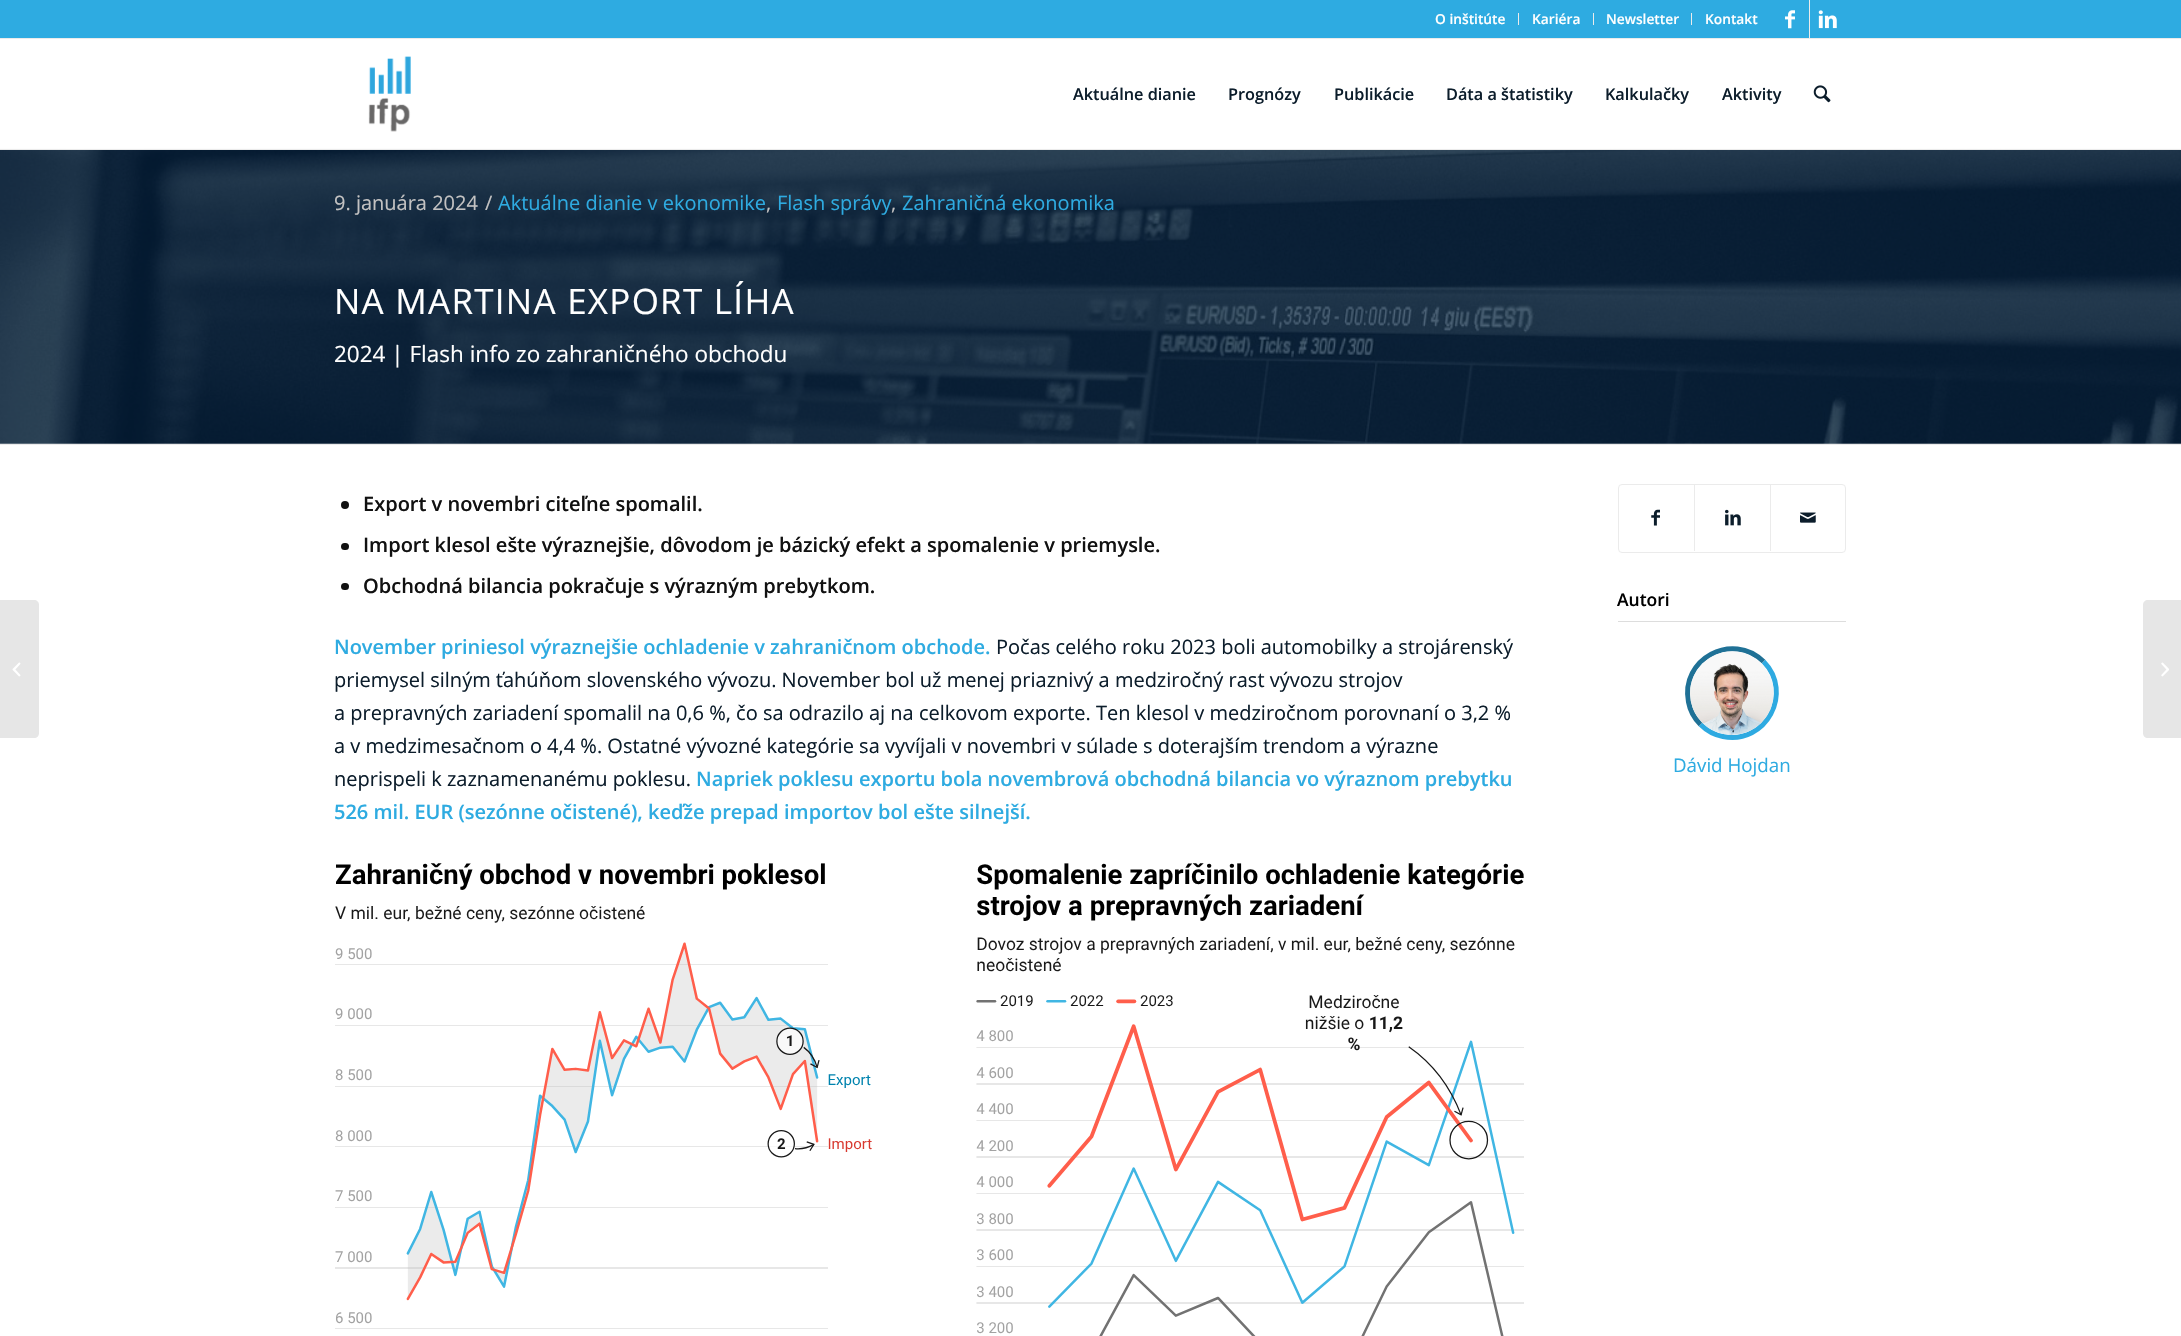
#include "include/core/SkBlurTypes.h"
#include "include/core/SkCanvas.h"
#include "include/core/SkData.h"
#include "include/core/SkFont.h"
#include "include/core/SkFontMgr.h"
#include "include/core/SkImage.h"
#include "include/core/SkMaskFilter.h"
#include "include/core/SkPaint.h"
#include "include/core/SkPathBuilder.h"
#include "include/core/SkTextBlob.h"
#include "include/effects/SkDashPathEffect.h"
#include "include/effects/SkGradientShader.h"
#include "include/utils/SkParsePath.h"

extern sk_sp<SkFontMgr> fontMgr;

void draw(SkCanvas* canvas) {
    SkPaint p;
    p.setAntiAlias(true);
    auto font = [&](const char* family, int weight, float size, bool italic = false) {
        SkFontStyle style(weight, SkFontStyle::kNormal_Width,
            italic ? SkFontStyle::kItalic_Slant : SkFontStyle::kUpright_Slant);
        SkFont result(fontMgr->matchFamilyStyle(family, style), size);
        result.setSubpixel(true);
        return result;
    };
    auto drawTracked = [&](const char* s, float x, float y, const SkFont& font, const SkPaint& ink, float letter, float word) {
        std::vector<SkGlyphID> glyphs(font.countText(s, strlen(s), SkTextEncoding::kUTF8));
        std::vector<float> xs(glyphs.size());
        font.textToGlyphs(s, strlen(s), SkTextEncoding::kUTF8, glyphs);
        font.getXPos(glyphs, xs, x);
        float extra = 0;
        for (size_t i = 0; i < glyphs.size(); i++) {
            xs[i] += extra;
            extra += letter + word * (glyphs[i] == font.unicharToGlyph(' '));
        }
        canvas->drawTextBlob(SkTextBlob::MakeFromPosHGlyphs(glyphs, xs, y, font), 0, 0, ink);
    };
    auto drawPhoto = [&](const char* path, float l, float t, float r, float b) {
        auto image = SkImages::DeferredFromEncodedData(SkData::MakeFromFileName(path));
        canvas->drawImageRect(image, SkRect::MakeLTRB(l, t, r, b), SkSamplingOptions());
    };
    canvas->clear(0xFFFFFFFF);
    {
        const struct { float l, t, r, b; SkColor color; } items[] = {
            {0, 0, 2181, 38, 0xFF2EABE1},
            {0, 38, 2181, 39, 0xFFEBEBEB},
            {1518, 13, 1519, 25, 0xFFEBEBEB},
        };
        for (auto [l, t, r, b, color] : items) {
            p.setColor(color);
            canvas->drawRect(SkRect::MakeLTRB(l, t, r, b), p);
        }
    }
    auto font1 = font("Open Sans", 600, 13.75f);
    p.setColor(0xFFFFFFFF);
    canvas->drawString("O inštitúte", 1435, 24, font1, p);
    p.setColor(0xFFEBEBEB);
    canvas->drawRect(SkRect::MakeLTRB(1593, 13, 1594, 25), p);
    p.setColor(0xFFFFFFFF);
    canvas->drawString("Kariéra", 1532, 24, font1, p);
    p.setColor(0xFFEBEBEB);
    canvas->drawRect(SkRect::MakeLTRB(1691, 13, 1692, 25), p);
    p.setColor(0xFFFFFFFF);
    canvas->drawString("Newsletter", 1606, 24, font1, p);
    canvas->drawString("Kontakt", 1705, 24, font1, p);
    p.setColor(0xFFEBEBEB);
    canvas->drawRect(SkRect::MakeLTRB(1809, 0, 1810, 38), p);
    drawPhoto("media/1.png", 1785, 10, 1795, 29);
    drawPhoto("media/2.png", 1818, 10, 1837, 29);
    drawPhoto("media/6.png", 0, 148, 2181, 444);
    canvas->drawRect(SkRect::MakeLTRB(0, 149, 2181, 150), p);
    drawPhoto("media/3.png", 368, 56, 411, 132);
    auto font2 = font("Open Sans", 600, 16.25f);
    p.setColor(0xFF0C1D2B);
    {
        const struct { const char* s; float x, y; } items[] = {
            {"Aktuálne dianie", 1073, 100},
            {"Prognózy", 1228, 100},
            {"Publikácie", 1334, 100},
            {"Dáta a štatistiky", 1446, 100},
            {"Kalkulačky", 1605, 100},
            {"Aktivity", 1722, 100},
        };
        for (auto [s, x, y] : items) {
            canvas->drawString(s, x, y, font2, p);
        }
    }
    drawPhoto("media/4.png", 1813, 85, 1831, 103);
    p.setColor(0xF2FFFFFF);
    canvas->drawRect(SkRect::MakeLTRB(0, 148, 2181, 149), p);
    p.setColor(0xFFE6E6E6);
    canvas->drawPath(SkPathBuilder().moveTo(0, 600).lineTo(34, 600).cubicTo(37, 600, 39, 602, 39, 605).lineTo(39, 733).cubicTo(39, 736, 37, 738, 34, 738).lineTo(0, 738).close().detach(), p);
    drawPhoto("media/5.png", 12, 662, 21, 677);
    auto font3 = font("Open Sans", 400, 20);
    p.setColor(0xFFC3C2C2);
    canvas->drawString("9. januára 2024", 334, 210, font3, p);
    canvas->drawString("/", 485, 210, font3, p);
    p.setColor(0xFF2EABE1);
    canvas->drawString("Aktuálne dianie v ekonomike", 498, 210, font3, p);
    p.setColor(0xFFC3C2C2);
    canvas->drawString(",", 766, 210, font3, p);
    p.setColor(0xFF2EABE1);
    canvas->drawString("Flash správy", 777, 210, font3, p);
    p.setColor(0xFFC3C2C2);
    canvas->drawString(",", 891, 210, font3, p);
    p.setColor(0xFF2EABE1);
    canvas->drawString("Zahraničná ekonomika", 902, 210, font3, p);
    auto font4 = font("Open Sans", 400, 35);
    p.setColor(0xFFFFFFFF);
    drawTracked("NA MARTINA EXPORT LÍHA", 334, 314, font4, p, 1.25f, 0);
    auto font5 = font("Open Sans", 400, 22.5f);
    canvas->drawString("2024 | Flash info zo zahraničného obchodu", 334, 362, font5, p);
    p.setColor(0xFFEBEBEB);
    canvas->drawRect(SkRect::MakeLTRB(0, 444, 2181, 445), p);
    p.setColor(0xFF111111);
    canvas->drawCircle(345, 505, 4, p);
    auto font6 = font("Open Sans", 600, 20);
    canvas->drawString("Export v novembri citeľne spomalil.", 363, 511, font6, p);
    canvas->drawRoundRect(SkRect::MakeLTRB(341, 543, 349, 550), 3.5f, 3.5f, p);
    canvas->drawString("Import klesol ešte výraznejšie, dôvodom je bázický efekt a spomalenie v priemysle.", 363, 552, font6, p);
    canvas->drawRoundRect(SkRect::MakeLTRB(341, 583, 349, 590), 3.5f, 3.5f, p);
    canvas->drawString("Obchodná bilancia pokračuje s výrazným prebytkom.", 363, 593, font6, p);
    p.setColor(0xFF2EABE1);
    canvas->drawString("November priniesol výraznejšie ochladenie v zahraničnom obchode.", 334, 654, font6, p);
    p.setColor(0xFF0C1D2B);
    {
        const struct { const char* s; float x, y; } items[] = {
            {"Počas celého roku 2023 boli automobilky a strojárenský", 996, 654},
            {"priemysel silným ťahúňom slovenského vývozu. November bol už menej priaznivý a medziročný rast vývozu strojov", 334, 687},
            {"a prepravných zariadení spomalil na 0,6 %, čo sa odrazilo aj na celkovom exporte. Ten klesol v medziročnom porovnaní o 3,2 %", 334, 720},
            {"a v medzimesačnom o 4,4 %. Ostatné vývozné kategórie sa vyvíjali v novembri v súlade s doterajším trendom a výrazne", 334, 753},
            {"neprispeli k zaznamenanému poklesu.", 334, 786},
        };
        for (auto [s, x, y] : items) {
            canvas->drawString(s, x, y, font3, p);
        }
    }
    p.setColor(0xFF2EABE1);
    canvas->drawString("Napriek poklesu exportu bola novembrová obchodná bilancia vo výraznom prebytku", 696, 786, font6, p);
    canvas->drawString("526 mil. EUR (sezónne očistené), keďže prepad importov bol ešte silnejší.", 334, 819, font6, p);
    p.setStyle(SkPaint::kStroke_Style);
    p.setStrokeWidth(1);
    p.setColor(0xFFEBEBEB);
    canvas->drawRoundRect(SkRect::MakeLTRB(1618.5f, 484.5f, 1845.5f, 552.5f), 3.5f, 3.5f, p);
    drawPhoto("media/7.png", 1651, 509, 1660, 526);
    p.setStyle(SkPaint::kFill_Style);
    canvas->drawRect(SkRect::MakeLTRB(1694, 485, 1695, 551), p);
    drawPhoto("media/8.png", 1725, 509, 1741, 526);
    canvas->drawRect(SkRect::MakeLTRB(1770, 485, 1771, 551), p);
    drawPhoto("media/9.png", 1800, 512, 1816, 523);
    auto font7 = font("Open Sans", 600, 17.5f);
    p.setColor(0xFF000000);
    canvas->drawString("Autori", 1617, 606, font7, p);
    p.setColor(0xFFDDDDDD);
    canvas->drawRect(SkRect::MakeLTRB(1618, 621, 1846, 622), p);
    p.setStyle(SkPaint::kStroke_Style);
    p.setStrokeWidth(5);
    p.setColor(0xFF2EAAE1);
    canvas->drawPath(SkPathBuilder().moveTo(1763.5f, 661.5f).cubicTo(1794, 692.5f, 1766, 745, 1723, 736.5f).cubicTo(1714.5f, 735, 1706.5f, 730.5f, 1700.5f, 724.5f).detach(), p);
    p.setColor(0xFF1F7196);
    canvas->drawPath(SkPathBuilder().moveTo(1700.5f, 724.5f).cubicTo(1694.5f, 718.5f, 1690, 710.5f, 1688.5f, 702).cubicTo(1680, 659, 1732.5f, 631, 1763.5f, 661.5f).detach(), p);
    drawPhoto("media/10.png", 1690, 651, 1774, 735);
    auto font8 = font("Open Sans", 400, 18.75f);
    p.setStyle(SkPaint::kFill_Style);
    p.setColor(0xFF2EABE1);
    canvas->drawString("Dávid Hojdan", 1673, 772, font8, p);
    drawPhoto("media/11.png", 335, 863, 872, 1329);
    drawPhoto("media/12.png", 976, 863, 1524, 1336);
    p.setColor(0xFFE6E6E6);
    canvas->drawPath(SkPathBuilder().moveTo(2148, 600).lineTo(2181, 600).lineTo(2181, 738).lineTo(2148, 738).cubicTo(2145, 738, 2143, 736, 2143, 733).lineTo(2143, 605).cubicTo(2143, 602, 2145, 600, 2148, 600).close().detach(), p);
    drawPhoto("media/13.png", 2161, 662, 2169, 677);
}
